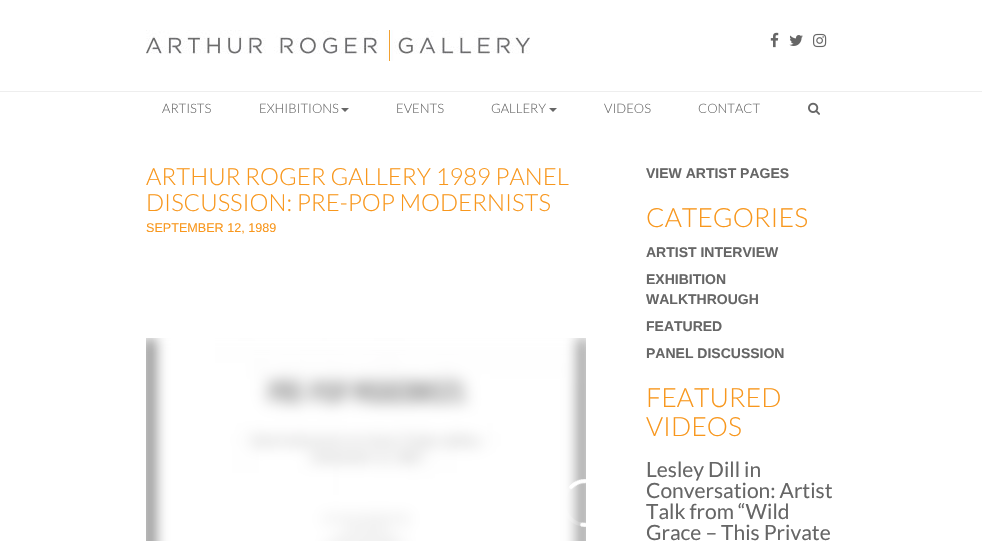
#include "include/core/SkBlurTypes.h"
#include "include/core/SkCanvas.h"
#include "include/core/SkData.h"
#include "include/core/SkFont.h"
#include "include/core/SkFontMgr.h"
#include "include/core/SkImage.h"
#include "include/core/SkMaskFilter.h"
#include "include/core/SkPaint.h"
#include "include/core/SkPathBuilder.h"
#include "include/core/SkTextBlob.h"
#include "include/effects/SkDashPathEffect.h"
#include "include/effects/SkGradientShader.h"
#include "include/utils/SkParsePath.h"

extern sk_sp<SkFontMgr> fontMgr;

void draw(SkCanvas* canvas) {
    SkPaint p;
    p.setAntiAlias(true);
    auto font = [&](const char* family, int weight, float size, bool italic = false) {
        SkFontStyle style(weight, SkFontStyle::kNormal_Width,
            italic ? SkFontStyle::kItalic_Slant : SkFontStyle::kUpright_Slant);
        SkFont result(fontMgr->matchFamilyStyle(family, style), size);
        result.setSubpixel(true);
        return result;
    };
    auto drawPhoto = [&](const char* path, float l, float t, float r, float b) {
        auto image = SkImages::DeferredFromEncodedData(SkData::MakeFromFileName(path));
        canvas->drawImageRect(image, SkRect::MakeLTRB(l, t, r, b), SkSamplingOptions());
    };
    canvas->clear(0xFFFFFFFF);
    p.setColor(0xFFEEEEEE);
    canvas->drawRect(SkRect::MakeLTRB(0, 91, 982, 92), p);
    drawPhoto("media/1.png", 146, 30, 530, 61);
    drawPhoto("media/2.png", 770, 32, 779, 48);
    drawPhoto("media/3.png", 789, 35, 803, 46);
    drawPhoto("media/4.png", 813, 33, 827, 48);
    auto font1 = font("Lato", 300, 13);
    p.setColor(0xFF666666);
    canvas->drawString("ARTISTS", 162, 113, font1, p);
    canvas->drawString("EXHIBITIONS", 259, 113, font1, p);
    canvas->drawPath(SkPathBuilder().moveTo(341, 108).lineTo(349, 108).lineTo(345, 112).close().detach(), p);
    canvas->drawString("EVENTS", 396, 113, font1, p);
    canvas->drawString("GALLERY", 491, 113, font1, p);
    canvas->drawPath(SkPathBuilder().moveTo(549, 108).lineTo(557, 108).lineTo(553, 112).close().detach(), p);
    canvas->drawString("VIDEOS", 604, 113, font1, p);
    canvas->drawString("CONTACT", 698, 113, font1, p);
    drawPhoto("media/5.png", 808, 102, 820, 115);
    auto font2 = font("Lato", 300, 23.75f);
    p.setColor(0xFFF8971D);
    canvas->drawString("ARTHUR ROGER GALLERY 1989 PANEL", 146, 185, font2, p);
    canvas->drawString("DISCUSSION: PRE-POP MODERNISTS", 146, 211, font2, p);
    auto font3 = font("Liberation Sans", 400, 12.6f);
    canvas->drawString("SEPTEMBER 12, 1989", 146, 232, font3, p);
    drawPhoto("media/6.png", 146, 338, 586, 541);
    auto font4 = font("Liberation Sans", 700, 14);
    p.setColor(0xFF666666);
    canvas->drawString("VIEW ARTIST PAGES", 646, 178, font4, p);
    auto font5 = font("Lato", 300, 26.5f);
    p.setColor(0xFFF8971D);
    canvas->drawString("CATEGORIES", 646, 227, font5, p);
    p.setColor(0xFF666666);
    {
        const struct { const char* s; float x, y; } items[] = {
            {"ARTIST INTERVIEW", 646, 257},
            {"EXHIBITION", 646, 284},
            {"WALKTHROUGH", 646, 304},
            {"FEATURED", 646, 331},
            {"PANEL DISCUSSION", 646, 358},
        };
        for (auto [s, x, y] : items) {
            canvas->drawString(s, x, y, font4, p);
        }
    }
    p.setColor(0xFFF8971D);
    canvas->drawString("FEATURED", 646, 407, font5, p);
    canvas->drawString("VIDEOS", 646, 436, font5, p);
    auto font6 = font("Lato", 400, 21);
    p.setColor(0xFF666666);
    {
        const struct { const char* s; float x, y; } items[] = {
            {"Lesley Dill in", 646, 477},
            {"Conversation: Artist", 646, 498},
            {"Talk from “Wild", 646, 519},
            {"Grace – This Private", 646, 540},
        };
        for (auto [s, x, y] : items) {
            canvas->drawString(s, x, y, font6, p);
        }
    }
}
